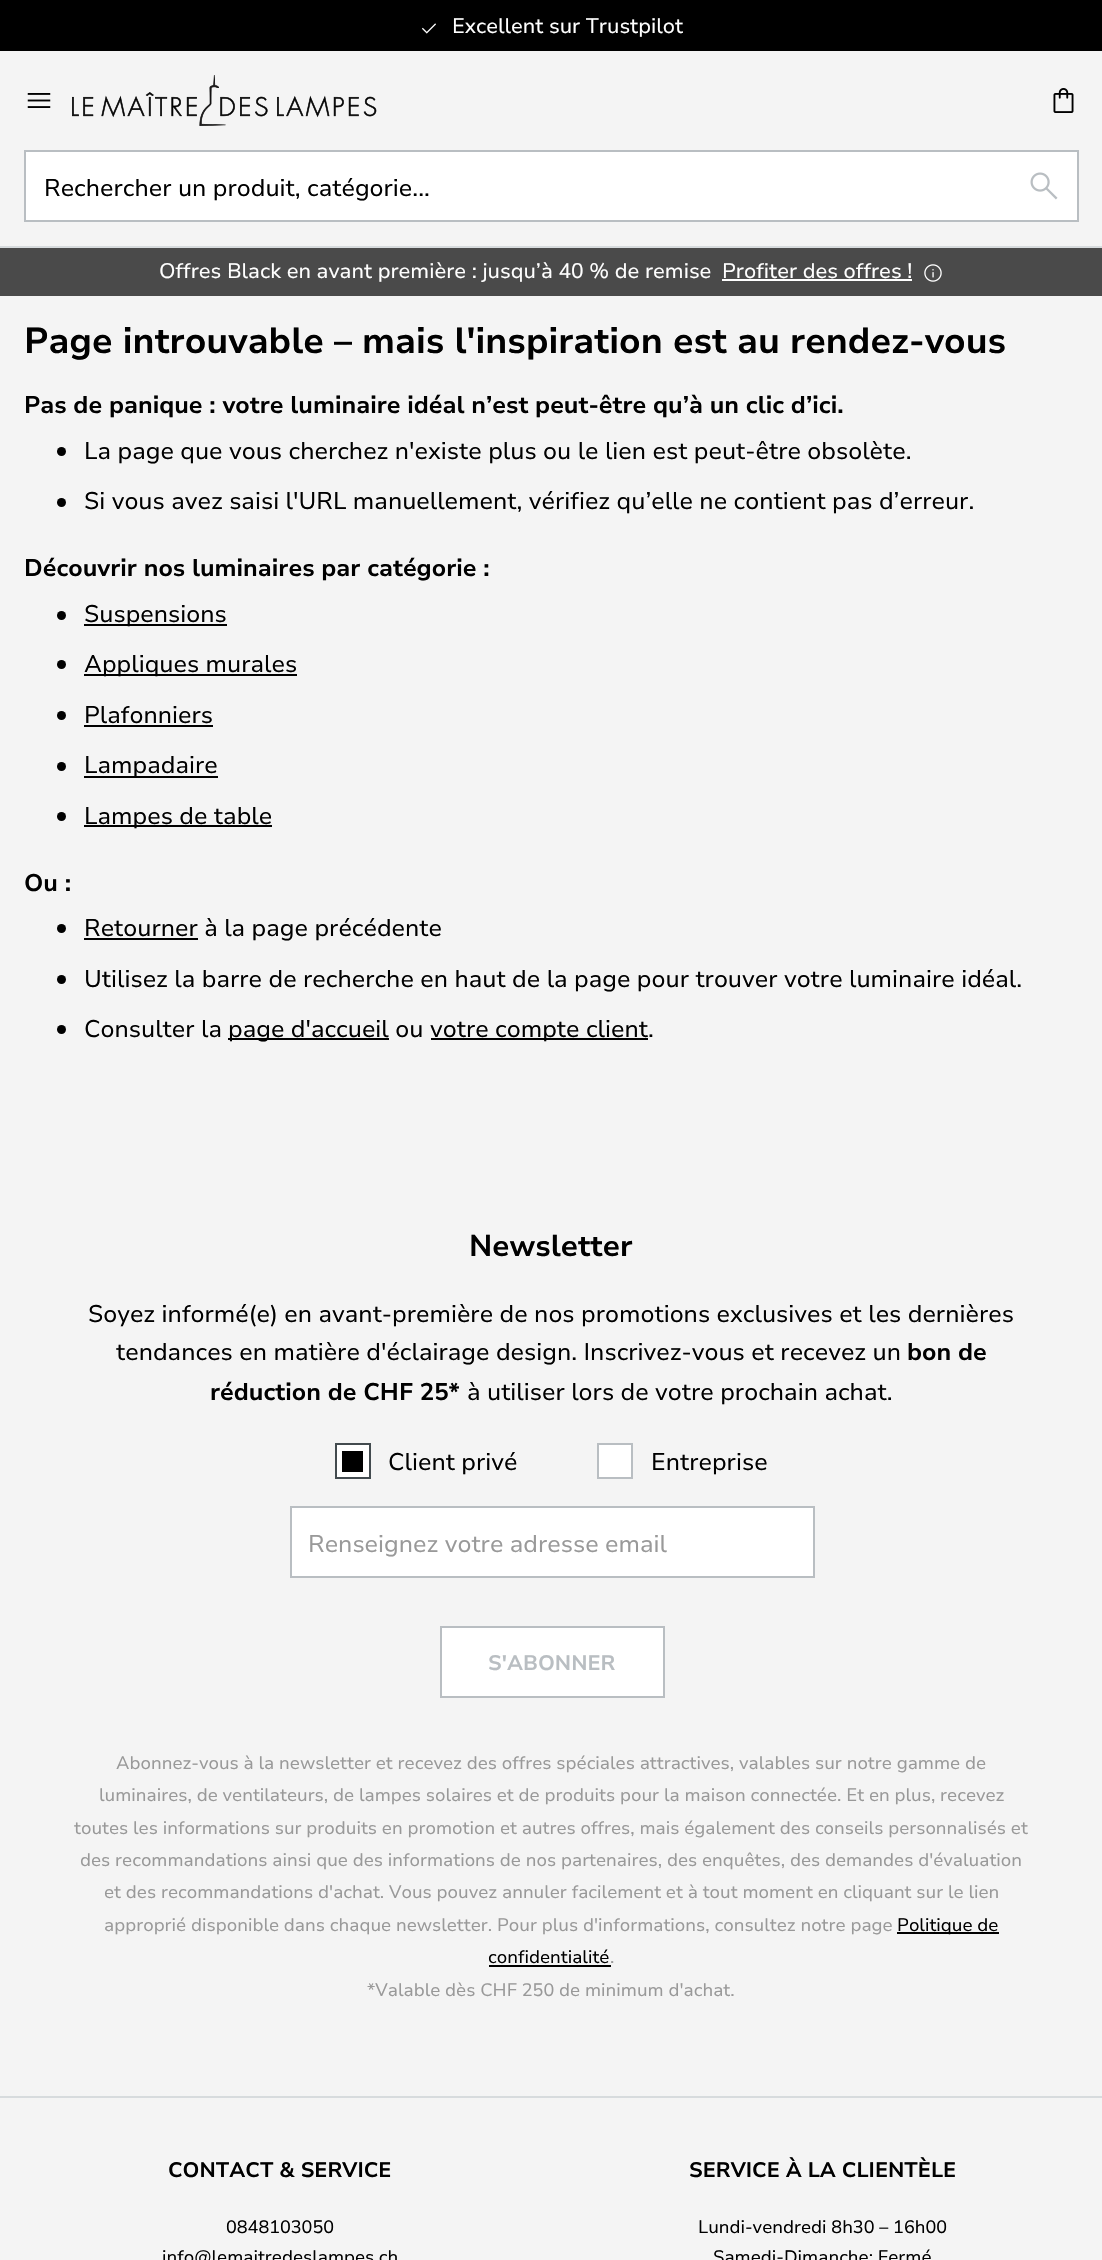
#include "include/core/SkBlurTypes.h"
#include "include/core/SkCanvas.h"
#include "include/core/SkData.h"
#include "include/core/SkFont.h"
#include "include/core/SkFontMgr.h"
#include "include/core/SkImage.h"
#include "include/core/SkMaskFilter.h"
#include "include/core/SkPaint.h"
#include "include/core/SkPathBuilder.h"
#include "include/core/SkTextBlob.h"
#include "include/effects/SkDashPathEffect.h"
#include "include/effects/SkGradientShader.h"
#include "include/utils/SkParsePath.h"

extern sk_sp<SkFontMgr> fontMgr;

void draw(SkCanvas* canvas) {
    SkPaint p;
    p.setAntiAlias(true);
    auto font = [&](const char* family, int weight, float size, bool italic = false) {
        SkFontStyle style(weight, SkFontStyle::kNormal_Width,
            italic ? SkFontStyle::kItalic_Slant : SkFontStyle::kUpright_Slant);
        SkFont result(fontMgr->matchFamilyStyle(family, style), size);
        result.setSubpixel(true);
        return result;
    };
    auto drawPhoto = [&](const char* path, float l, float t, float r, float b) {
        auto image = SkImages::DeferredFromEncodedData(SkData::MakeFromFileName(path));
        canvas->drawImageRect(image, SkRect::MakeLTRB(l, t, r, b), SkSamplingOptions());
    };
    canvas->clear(0xFFF4F4F4);
    p.setColor(0xFFD7DBDD);
    canvas->drawRect(SkRect::MakeLTRB(0, 246, 1102, 248), p);
    p.setColor(0xFF000000);
    canvas->drawRect(SkRect::MakeLTRB(0, 0, 1102, 51), p);
    drawPhoto("media/1.png", 422, 23, 436, 34);
    auto font1 = font("Nunito Sans", 400, 21);
    p.setColor(0xFFFFFFFF);
    canvas->drawString("Excellent sur Trustpilot", 452, 33, font1, p);
    drawPhoto("media/2.png", 27, 93, 51, 108);
    drawPhoto("media/3.png", 72, 75, 377, 126);
    drawPhoto("media/4.png", 1053, 88, 1074, 113);
    canvas->drawRect(SkRect::MakeLTRB(25, 151, 1078, 221), p);
    p.setStyle(SkPaint::kStroke_Style);
    p.setStrokeWidth(2);
    p.setColor(0xFFB9BEC2);
    canvas->drawRect(SkRect::MakeLTRB(25, 151, 1078, 221), p);
    auto font2 = font("Nunito Sans", 400, 24);
    p.setStyle(SkPaint::kFill_Style);
    p.setColor(0xFF000000);
    canvas->drawString("Rechercher un produit, catégorie...", 44, 196, font2, p);
    drawPhoto("media/5.png", 1030, 172, 1058, 200);
    p.setColor(0xFF4A4A4A);
    canvas->drawRect(SkRect::MakeLTRB(0, 248, 1102, 296), p);
    p.setColor(0xFFFFFFFF);
    canvas->drawString("Offres Black en avant première : jusqu’à 40 % de remise", 159, 278, font1, p);
    canvas->drawString("Profiter des offres !", 722, 278, font1, p);
    canvas->drawRect(SkRect::MakeLTRB(722, 279, 912, 281), p);
    drawPhoto("media/6.png", 924, 264, 942, 282);
    auto font3 = font("Nunito Sans", 700, 36);
    p.setColor(0xFF000000);
    canvas->drawString("Page introuvable – mais l'inspiration est au rendez-vous", 24, 353, font3, p);
    auto font4 = font("Nunito Sans", 700, 24);
    canvas->drawString("Pas de panique : votre luminaire idéal n’est peut-être qu’à un clic d’ici.", 24, 413, font4, p);
    canvas->drawCircle(61.5f, 451.5f, 4.5f, p);
    canvas->drawString("La page que vous cherchez n'existe plus ou le lien est peut-être obsolète.", 84, 459, font2, p);
    canvas->drawCircle(61.5f, 502.5f, 4.5f, p);
    canvas->drawString("Si vous avez saisi l'URL manuellement, vérifiez qu’elle ne contient pas d’erreur.", 84, 509, font2, p);
    canvas->drawString("Découvrir nos luminaires par catégorie :", 24, 576, font4, p);
    canvas->drawCircle(61.5f, 615.5f, 4.5f, p);
    canvas->drawRect(SkRect::MakeLTRB(84, 624, 227, 626), p);
    canvas->drawString("Suspensions", 84, 622, font2, p);
    canvas->drawCircle(61.5f, 664.5f, 4.5f, p);
    canvas->drawRect(SkRect::MakeLTRB(84, 674, 297, 676), p);
    canvas->drawString("Appliques murales", 84, 672, font2, p);
    canvas->drawCircle(61.5f, 715.5f, 4.5f, p);
    canvas->drawString("Plafonniers", 84, 723, font2, p);
    canvas->drawRect(SkRect::MakeLTRB(84, 725, 213, 727), p);
    canvas->drawCircle(61.5f, 766.5f, 4.5f, p);
    canvas->drawRect(SkRect::MakeLTRB(84, 776, 218, 778), p);
    canvas->drawString("Lampadaire", 84, 773, font2, p);
    canvas->drawCircle(61.5f, 816.5f, 4.5f, p);
    canvas->drawRect(SkRect::MakeLTRB(84, 825, 272, 827), p);
    canvas->drawString("Lampes de table", 84, 824, font2, p);
    canvas->drawString("Ou :", 24, 891, font4, p);
    canvas->drawCircle(61.5f, 928.5f, 4.5f, p);
    canvas->drawRect(SkRect::MakeLTRB(84, 938, 198, 940), p);
    canvas->drawString("Retourner à la page précédente", 84, 936, font2, p);
    canvas->drawCircle(61.5f, 979.5f, 4.5f, p);
    canvas->drawString("Utilisez la barre de recherche en haut de la page pour trouver votre luminaire idéal.", 84, 987, font2, p);
    canvas->drawCircle(61.5f, 1029.5f, 4.5f, p);
    canvas->drawString("Consulter la", 84, 1037, font2, p);
    canvas->drawRect(SkRect::MakeLTRB(228, 1038, 389, 1040), p);
    canvas->drawString("page d'accueil ou", 228, 1037, font2, p);
    canvas->drawRect(SkRect::MakeLTRB(431, 1038, 648, 1040), p);
    canvas->drawString("votre compte client.", 430, 1037, font2, p);
    auto font5 = font("Nunito Sans", 700, 30);
    canvas->drawString("Newsletter", 469, 1256, font5, p);
    canvas->drawString("Soyez informé(e) en avant-première de nos promotions exclusives et les dernières", 88, 1322, font2, p);
    canvas->drawString("tendances en matière d'éclairage design. Inscrivez-vous et recevez un", 116, 1360, font2, p);
    canvas->drawString("bon de", 907, 1360, font4, p);
    canvas->drawString("réduction de CHF 25*", 210, 1400, font4, p);
    canvas->drawString("à utiliser lors de votre prochain achat.", 467, 1400, font2, p);
    p.setColor(0xFFFFFFFF);
    canvas->drawRect(SkRect::MakeLTRB(336, 1444, 370, 1478), p);
    p.setStyle(SkPaint::kStroke_Style);
    p.setColor(0xFF434B4F);
    canvas->drawRect(SkRect::MakeLTRB(336, 1444, 370, 1478), p);
    p.setStyle(SkPaint::kFill_Style);
    p.setColor(0xFF000000);
    canvas->drawRect(SkRect::MakeLTRB(342, 1451, 363, 1472), p);
    canvas->drawString("Client privé", 388, 1470, font2, p);
    p.setColor(0xFFFFFFFF);
    canvas->drawRect(SkRect::MakeLTRB(598, 1444, 632, 1478), p);
    p.setStyle(SkPaint::kStroke_Style);
    p.setColor(0xFFB9BEC2);
    canvas->drawRect(SkRect::MakeLTRB(598, 1444, 632, 1478), p);
    p.setStyle(SkPaint::kFill_Style);
    p.setColor(0xFF000000);
    canvas->drawString("Entreprise", 651, 1470, font2, p);
    p.setColor(0xFFFFFFFF);
    canvas->drawRect(SkRect::MakeLTRB(291, 1507, 814, 1577), p);
    p.setStyle(SkPaint::kStroke_Style);
    p.setColor(0xFFB9BEC2);
    canvas->drawRect(SkRect::MakeLTRB(291, 1507, 814, 1577), p);
    p.setStyle(SkPaint::kFill_Style);
    p.setColor(0xFF999999);
    canvas->drawString("Renseignez votre adresse email", 308, 1552, font2, p);
    p.setColor(0xFFFFFFFF);
    canvas->drawRect(SkRect::MakeLTRB(441, 1627, 664, 1697), p);
    p.setStyle(SkPaint::kStroke_Style);
    p.setColor(0xFFB9BEC2);
    canvas->drawRect(SkRect::MakeLTRB(441, 1627, 664, 1697), p);
    auto font6 = font("Nunito Sans", 700, 21);
    p.setStyle(SkPaint::kFill_Style);
    canvas->drawString("S'ABONNER", 488, 1670, font6, p);
    auto font7 = font("Nunito Sans", 400, 18);
    p.setColor(0xFF999999);
    {
        const struct { const char* s; float x, y; } items[] = {
            {"Abonnez-vous à la newsletter et recevez des offres spéciales attractives, valables sur notre gamme de", 116, 1769},
            {"luminaires, de ventilateurs, de lampes solaires et de produits pour la maison connectée. Et en plus, recevez", 99, 1801},
            {"toutes les informations sur produits en promotion et autres offres, mais également des conseils personnalisés et", 74, 1834},
            {"des recommandations ainsi que des informations de nos partenaires, des enquêtes, des demandes d'évaluation", 80, 1866},
            {"et des recommandations d'achat. Vous pouvez annuler facilement et à tout moment en cliquant sur le lien", 104, 1898},
            {"approprié disponible dans chaque newsletter. Pour plus d'informations, consultez notre page", 104, 1931},
        };
        for (auto [s, x, y] : items) {
            canvas->drawString(s, x, y, font7, p);
        }
    }
    p.setColor(0xFF000000);
    canvas->drawRect(SkRect::MakeLTRB(897, 1932, 999, 1934), p);
    canvas->drawString("Politique de", 897, 1931, font7, p);
    canvas->drawString("confidentialité", 488, 1963, font7, p);
    canvas->drawRect(SkRect::MakeLTRB(489, 1965, 611, 1967), p);
    p.setColor(0xFF999999);
    canvas->drawString(".", 610, 1963, font7, p);
    canvas->drawString("*Valable dès CHF 250 de minimum d'achat.", 367, 1996, font7, p);
    p.setColor(0xFFD7DBDD);
    canvas->drawRect(SkRect::MakeLTRB(0, 2096, 1102, 2098), p);
    p.setColor(0xFF000000);
    canvas->drawString("CONTACT & SERVICE", 168, 2177, font6, p);
    canvas->drawString("0848103050", 226, 2233, font7, p);
    canvas->drawString("info@lemaitredeslampes.ch", 162, 2263, font7, p);
    canvas->drawString("SERVICE À LA CLIENTÈLE", 689, 2177, font6, p);
    canvas->drawString("Lundi-vendredi 8h30 – 16h00", 698, 2233, font7, p);
    canvas->drawString("Samedi-Dimanche: Fermé", 713, 2263, font7, p);
}
